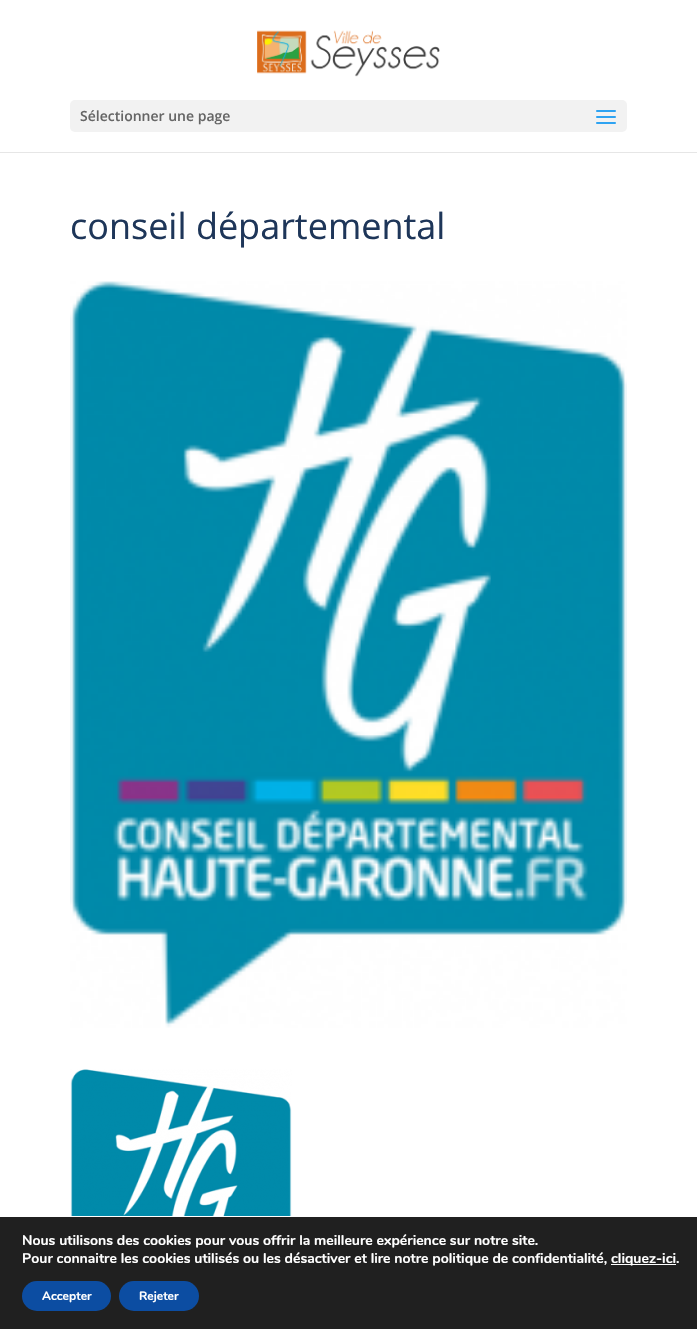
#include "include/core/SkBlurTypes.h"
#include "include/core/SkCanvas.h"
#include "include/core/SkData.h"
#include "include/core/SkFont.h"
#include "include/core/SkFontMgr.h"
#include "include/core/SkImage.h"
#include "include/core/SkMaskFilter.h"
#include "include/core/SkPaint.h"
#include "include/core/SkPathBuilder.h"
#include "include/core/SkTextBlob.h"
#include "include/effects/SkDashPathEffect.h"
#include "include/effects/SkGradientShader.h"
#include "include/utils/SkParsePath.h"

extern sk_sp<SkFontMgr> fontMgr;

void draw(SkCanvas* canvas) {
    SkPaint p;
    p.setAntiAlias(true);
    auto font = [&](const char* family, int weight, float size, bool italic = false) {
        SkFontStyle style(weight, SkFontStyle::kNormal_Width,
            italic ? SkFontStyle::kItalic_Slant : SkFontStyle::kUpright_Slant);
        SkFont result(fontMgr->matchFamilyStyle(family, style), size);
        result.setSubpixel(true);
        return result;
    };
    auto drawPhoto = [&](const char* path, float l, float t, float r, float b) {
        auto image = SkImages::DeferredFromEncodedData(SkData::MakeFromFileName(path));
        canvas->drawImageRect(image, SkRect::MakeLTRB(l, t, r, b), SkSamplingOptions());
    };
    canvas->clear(0xFFFFFFFF);
    p.setColor(0xFFE6E6E6);
    canvas->drawRect(SkRect::MakeLTRB(0, 152, 697, 153), p);
    drawPhoto("media/1.png", 257, 30, 440, 77);
    p.setColor(0xFFF2F2F2);
    canvas->drawRoundRect(SkRect::MakeLTRB(70, 100, 627, 132), 5, 5, p);
    auto font1 = font("Open Sans", 600, 14);
    p.setColor(0xFF666666);
    canvas->drawString("Sélectionner une page", 80, 121, font1, p);
    drawPhoto("media/2.png", 596, 110, 616, 124);
    auto font2 = font("Open Sans", 400, 36);
    p.setColor(0xFF1E3659);
    canvas->drawString("conseil départemental", 70, 239, font2, p);
    drawPhoto("media/3.png", 70, 281, 627, 1028);
    drawPhoto("media/4.png", 70, 1069, 292, 1216);
    p.setColor(0xFF202020);
    canvas->drawRect(SkRect::MakeLTRB(0, 1217, 697, 1329), p);
    auto font3 = font("Nunito", 700, 14);
    p.setColor(0xFFFFFFFF);
    canvas->drawString("Nous utilisons des cookies pour vous offrir la meilleure expérience sur notre site.", 22, 1245, font3, p);
    canvas->drawString("Pour connaitre les cookies utilisés ou les désactiver et lire notre politique de confidentialité,", 22, 1263, font3, p);
    canvas->drawRect(SkRect::MakeLTRB(611, 1264, 676, 1265), p);
    canvas->drawString("cliquez-ici.", 611, 1263, font3, p);
    p.setColor(0xFF0C4DA2);
    canvas->drawRoundRect(SkRect::MakeLTRB(22, 1281, 111, 1311), 15, 15, p);
    auto font4 = font("Nunito", 700, 12);
    p.setColor(0xFFFFFFFF);
    canvas->drawString("Accepter", 42, 1300, font4, p);
    p.setColor(0xFF0C4DA2);
    canvas->drawRoundRect(SkRect::MakeLTRB(119, 1281, 199, 1311), 15, 15, p);
    p.setColor(0xFFFFFFFF);
    canvas->drawString("Rejeter", 139, 1300, font4, p);
}
